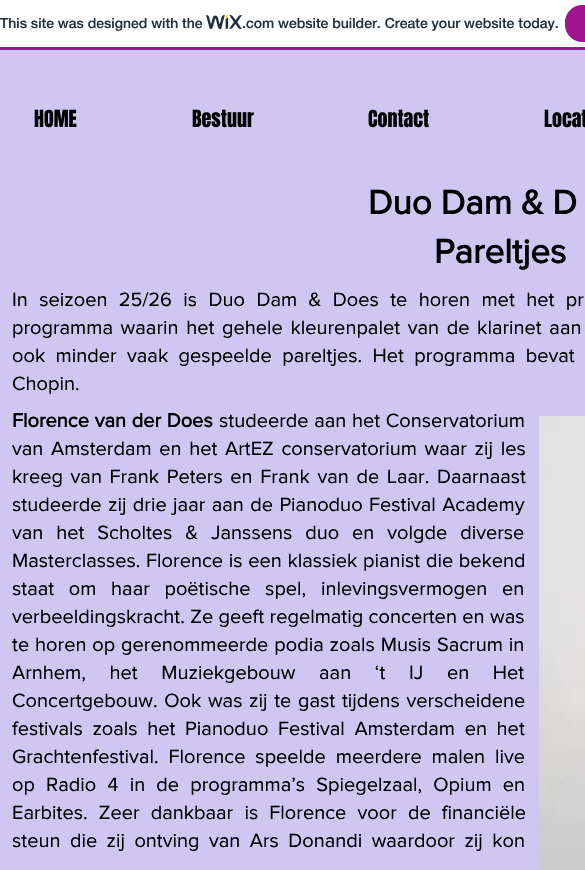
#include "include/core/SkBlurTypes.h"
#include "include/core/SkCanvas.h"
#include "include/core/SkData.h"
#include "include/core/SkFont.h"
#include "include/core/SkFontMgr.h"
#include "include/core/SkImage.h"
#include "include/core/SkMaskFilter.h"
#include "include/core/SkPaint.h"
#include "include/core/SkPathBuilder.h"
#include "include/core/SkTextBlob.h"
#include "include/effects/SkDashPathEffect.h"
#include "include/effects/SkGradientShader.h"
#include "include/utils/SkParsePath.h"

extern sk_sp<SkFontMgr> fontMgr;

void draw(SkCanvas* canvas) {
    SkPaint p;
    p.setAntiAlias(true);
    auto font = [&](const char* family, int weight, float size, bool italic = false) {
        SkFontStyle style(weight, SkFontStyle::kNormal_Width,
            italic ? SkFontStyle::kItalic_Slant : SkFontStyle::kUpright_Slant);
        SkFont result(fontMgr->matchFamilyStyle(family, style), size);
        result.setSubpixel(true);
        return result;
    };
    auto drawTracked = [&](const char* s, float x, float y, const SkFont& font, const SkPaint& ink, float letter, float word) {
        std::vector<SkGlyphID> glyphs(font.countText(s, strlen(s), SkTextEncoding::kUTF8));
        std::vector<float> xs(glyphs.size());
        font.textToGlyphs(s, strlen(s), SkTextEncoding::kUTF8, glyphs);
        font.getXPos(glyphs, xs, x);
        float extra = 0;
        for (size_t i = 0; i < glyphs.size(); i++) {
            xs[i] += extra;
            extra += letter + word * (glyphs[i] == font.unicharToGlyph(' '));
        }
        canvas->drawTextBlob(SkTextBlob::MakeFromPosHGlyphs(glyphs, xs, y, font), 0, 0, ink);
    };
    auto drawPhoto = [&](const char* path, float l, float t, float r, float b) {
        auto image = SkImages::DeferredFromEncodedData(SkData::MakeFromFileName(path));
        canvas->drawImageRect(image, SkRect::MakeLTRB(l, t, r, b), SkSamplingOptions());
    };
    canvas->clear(0xFFFFFFFF);
    p.setColor(0xFFA0138E);
    canvas->drawRect(SkRect::MakeLTRB(0, 47, 585, 50), p);
    auto font1 = font("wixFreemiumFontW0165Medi", 500, 14);
    p.setColor(0xFF20303C);
    canvas->drawString("This site was designed with the", 0, 28, font1, p);
    drawPhoto("media/1.png", 206, 15, 242, 30);
    canvas->drawString(".com website builder. Create your website today.", 242, 28, font1, p);
    p.setColor(0xFFA0138E);
    canvas->drawRoundRect(SkRect::MakeLTRB(565.5f, 5.5f, 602.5f, 41.5f), 16.5f, 16.5f, p);
    p.setStyle(SkPaint::kStroke_Style);
    p.setStrokeWidth(1);
    canvas->drawRoundRect(SkRect::MakeLTRB(565.5f, 5.5f, 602.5f, 41.5f), 16.5f, 16.5f, p);
    p.setStyle(SkPaint::kFill_Style);
    p.setColor(0xFFCFC7F2);
    canvas->drawRect(SkRect::MakeLTRB(0, 50, 585, 870), p);
    auto font2 = font("Anton", 400, 20);
    p.setColor(0xFF000000);
    {
        const struct { const char* s; float x, y; } items[] = {
            {"HOME", 34, 127},
            {"Bestuur", 192, 127},
            {"Contact", 368, 127},
            {"Locat", 544, 127},
        };
        for (auto [s, x, y] : items) {
            canvas->drawString(s, x, y, font2, p);
        }
    }
    auto font3 = font("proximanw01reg", 700, 35);
    canvas->drawString("Duo Dam & D", 368, 214, font3, p);
    canvas->drawString("Pareltjes", 434, 263, font3, p);
    auto font4 = font("proximanw01reg", 400, 20);
    drawTracked("In seizoen 25/26 is Duo Dam & Does te horen met het pr", 12, 306, font4, p, 0, 6.25f);
    drawTracked("programma waarin het gehele kleurenpalet van de klarinet aan", 12, 334, font4, p, 0, 2.5f);
    drawTracked("ook minder vaak gespeelde pareltjes. Het programma bevat", 12, 362, font4, p, 0, 5.25f);
    canvas->drawString("Chopin.", 12, 390, font4, p);
    auto font5 = font("proximanw01reg", 700, 20);
    drawTracked("Florence van der Does", 12, 427, font5, p, 0, 0.5f);
    drawTracked("studeerde aan het Conservatorium", 219, 427, font4, p, 0, 0.5f);
    drawTracked("van Amsterdam en het ArtEZ conservatorium waar zij les", 12, 455, font4, p, 0, 2.5f);
    drawTracked("kreeg van Frank Peters en Frank van de Laar. Daarnaast", 12, 483, font4, p, 0, 2.5f);
    drawTracked("studeerde zij drie jaar aan de Pianoduo Festival Academy", 12, 511, font4, p, 0, 1.25f);
    drawTracked("van het Scholtes & Janssens duo en volgde diverse", 12, 539, font4, p, 0, 7.75f);
    drawTracked("Masterclasses. Florence is een klassiek pianist die bekend", 12, 567, font4, p, 0, 0.5f);
    drawTracked("staat om haar poëtische spel, inlevingsvermogen en", 12, 595, font4, p, 0, 9.5f);
    drawTracked("verbeeldingskracht. Ze geeft regelmatig concerten en was", 12, 623, font4, p, 0, 0.25f);
    drawTracked("te horen op gerenommeerde podia zoals Musis Sacrum in", 12, 651, font4, p, 0, 0.75f);
    drawTracked("Arnhem, het Muziekgebouw aan ‘t IJ en Het", 12, 679, font4, p, 0, 18.5f);
    drawTracked("Concertgebouw. Ook was zij te gast tijdens verscheidene", 12, 707, font4, p, 0, 1.5f);
    drawTracked("festivals zoals het Pianoduo Festival Amsterdam en het", 12, 735, font4, p, 0, 4.5f);
    drawTracked("Grachtenfestival. Florence speelde meerdere malen live", 12, 763, font4, p, 0, 4.75f);
    drawTracked("op Radio 4 in de programma’s Spiegelzaal, Opium en", 12, 791, font4, p, 0, 6);
    drawTracked("Earbites. Zeer dankbaar is Florence voor de financiële", 12, 819, font4, p, 0, 6);
    drawTracked("steun die zij ontving van Ars Donandi waardoor zij kon", 12, 847, font4, p, 0, 4.25f);
    drawPhoto("media/2.png", 539, 416, 585, 870);
}
